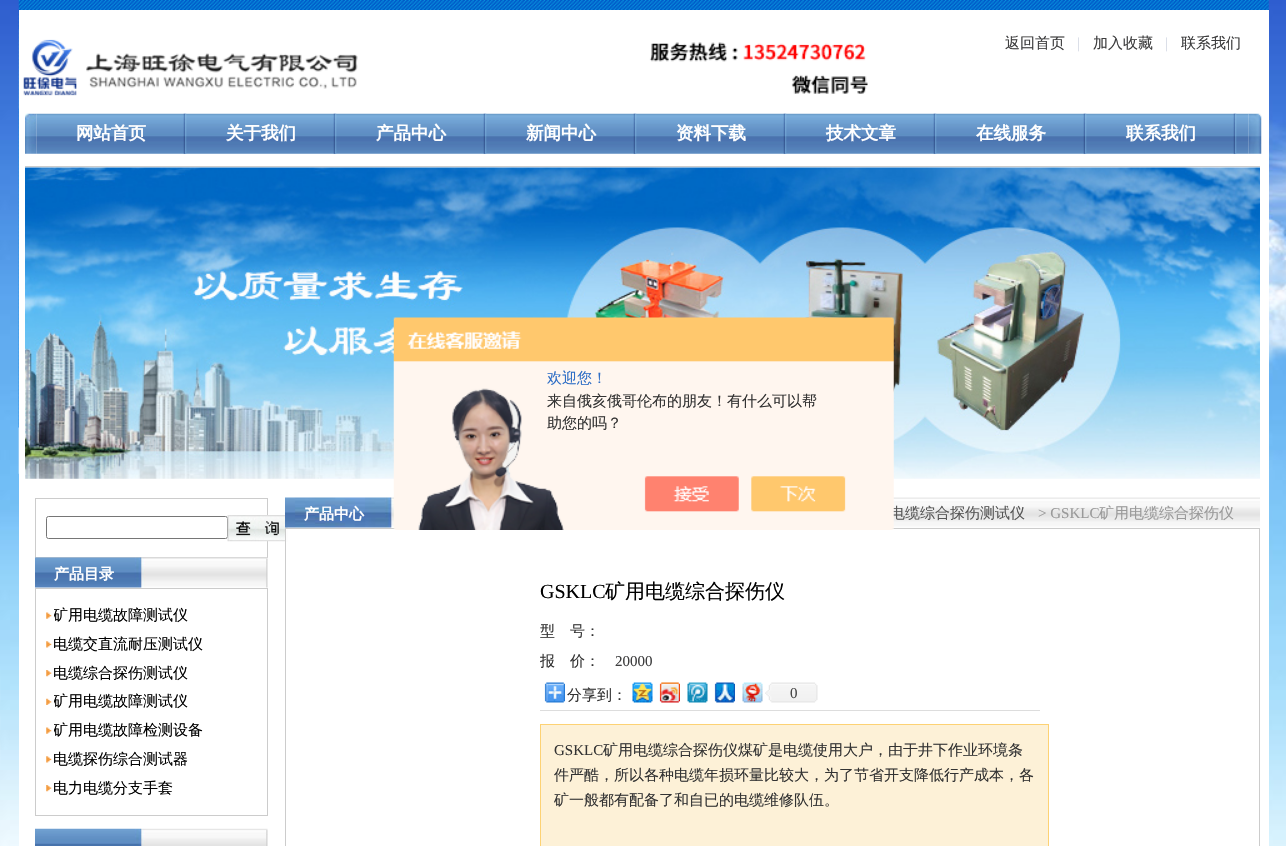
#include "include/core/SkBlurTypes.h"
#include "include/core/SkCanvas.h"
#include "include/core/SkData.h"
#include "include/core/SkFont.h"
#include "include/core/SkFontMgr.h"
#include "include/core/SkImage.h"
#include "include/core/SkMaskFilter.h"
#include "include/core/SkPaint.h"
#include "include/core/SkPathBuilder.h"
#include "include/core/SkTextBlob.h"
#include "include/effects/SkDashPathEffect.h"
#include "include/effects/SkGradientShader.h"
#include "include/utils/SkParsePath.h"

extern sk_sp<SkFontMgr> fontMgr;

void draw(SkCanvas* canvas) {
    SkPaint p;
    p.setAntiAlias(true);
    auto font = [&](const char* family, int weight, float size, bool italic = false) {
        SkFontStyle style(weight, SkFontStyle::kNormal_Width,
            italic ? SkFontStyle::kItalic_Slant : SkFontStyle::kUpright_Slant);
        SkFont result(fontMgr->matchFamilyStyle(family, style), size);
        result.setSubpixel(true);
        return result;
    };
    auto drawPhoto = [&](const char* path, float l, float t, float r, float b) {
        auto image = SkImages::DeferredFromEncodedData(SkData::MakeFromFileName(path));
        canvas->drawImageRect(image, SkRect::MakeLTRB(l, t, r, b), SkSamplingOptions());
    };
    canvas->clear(0xFFFFFFFF);
    drawPhoto("media/1.png", 0, 0, 1286, 846);
    drawPhoto("media/2.png", 18, 0, 1269, 474);
    p.setColor(0xFFFFFFFF);
    canvas->drawRect(SkRect::MakeLTRB(19, 10, 1269, 485), p);
    drawPhoto("media/3.png", 18, 29, 868, 109);
    auto font1 = font("WenQuanYi Zen Hei", 500, 15);
    p.setColor(0xFF3D3D3E);
    canvas->drawString("返回首页", 1005, 48, font1, p);
    auto font2 = font("Liberation Serif", 400, 15);
    p.setColor(0xFFD3D9E4);
    canvas->drawString("|", 1077, 48, font2, p);
    p.setColor(0xFF3D3D3E);
    canvas->drawString("加入收藏", 1093, 48, font1, p);
    p.setColor(0xFFD3D9E4);
    canvas->drawString("|", 1165, 48, font2, p);
    p.setColor(0xFF3D3D3E);
    canvas->drawString("联系我们", 1181, 48, font1, p);
    drawPhoto("media/4.png", 25, 113, 37, 154);
    drawPhoto("media/5.png", 36, 113, 1249, 154);
    drawPhoto("media/6.png", 183, 113, 187, 154);
    auto font3 = font("WenQuanYi Zen Hei", 700, 17.5f);
    p.setColor(0xFFFFFFFF);
    canvas->drawString("网站首页", 76, 139, font3, p);
    drawPhoto("media/7.png", 333, 113, 337, 154);
    canvas->drawString("关于我们", 226, 139, font3, p);
    drawPhoto("media/8.png", 483, 113, 487, 154);
    canvas->drawString("产品中心", 376, 139, font3, p);
    drawPhoto("media/9.png", 633, 113, 637, 154);
    canvas->drawString("新闻中心", 526, 139, font3, p);
    drawPhoto("media/10.png", 783, 113, 787, 154);
    canvas->drawString("资料下载", 676, 139, font3, p);
    drawPhoto("media/10.png", 933, 113, 937, 154);
    canvas->drawString("技术文章", 826, 139, font3, p);
    drawPhoto("media/8.png", 1083, 113, 1087, 154);
    canvas->drawString("在线服务", 976, 139, font3, p);
    drawPhoto("media/8.png", 1233, 113, 1237, 154);
    canvas->drawString("联系我们", 1126, 139, font3, p);
    drawPhoto("media/11.png", 1248, 113, 1262, 154);
    canvas->save();
    canvas->clipRect(SkRect::MakeLTRB(25, 166, 1260, 479));
    p.setStyle(SkPaint::kStroke_Style);
    p.setStrokeWidth(1);
    p.setColor(0xFFCCCCCC);
    canvas->drawRect(SkRect::MakeLTRB(24.5f, 166.5f, 1262.5f, 480.5f), p);
    canvas->restore();
    drawPhoto("media/12.png", 25, 167, 1260, 479);
    p.setStyle(SkPaint::kFill_Style);
    p.setColor(0xFFFFFFFF);
    canvas->drawRect(SkRect::MakeLTRB(19, 485, 1269, 846), p);
    p.setStyle(SkPaint::kStroke_Style);
    p.setColor(0xFFCCCCCC);
    canvas->drawRect(SkRect::MakeLTRB(35.5f, 498.5f, 267.5f, 557.5f), p);
    p.setColor(0xFF767676);
    canvas->drawRoundRect(SkRect::MakeLTRB(46.5f, 516.5f, 227.5f, 538.5f), 2, 2, p);
    drawPhoto("media/14.png", 227, 515, 288, 542);
    drawPhoto("media/21.png", 285, 497, 1260, 528);
    p.setStyle(SkPaint::kFill_Style);
    p.setColor(0xFF555555);
    canvas->drawString("电缆综合探伤测试仪", 890, 518, font1, p);
    p.setColor(0xFFFDFDFD);
    canvas->drawRect(SkRect::MakeLTRB(286, 529, 288, 542), p);
    p.setStyle(SkPaint::kStroke_Style);
    p.setColor(0xFFCCCCCC);
    canvas->drawRect(SkRect::MakeLTRB(285.5f, 528.5f, 1259.5f, 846.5f), p);
    drawPhoto("media/13.png", 393, 317, 894, 530);
    p.setStyle(SkPaint::kFill_Style);
    p.setColor(0xFF2E6EC6);
    canvas->drawString("欢迎您！", 547, 383, font1, p);
    p.setColor(0xFF333333);
    canvas->drawString("来自俄亥俄哥伦布的朋友！有什么可以帮", 547, 406, font1, p);
    canvas->drawString("助您的吗？", 547, 428, font1, p);
    drawPhoto("media/15.png", 35, 557, 268, 588);
    auto font4 = font("WenQuanYi Zen Hei", 700, 15);
    p.setColor(0xFFFFFFFF);
    canvas->drawString("产品目录", 54, 579, font4, p);
    p.setStyle(SkPaint::kStroke_Style);
    p.setColor(0xFFCCCCCC);
    canvas->drawRect(SkRect::MakeLTRB(35.5f, 588.5f, 267.5f, 815.5f), p);
    drawPhoto("media/16.png", 46, 612, 52, 619);
    canvas->save();
    canvas->clipRect(SkRect::MakeLTRB(54, 601, 249, 630));
    p.setStyle(SkPaint::kFill_Style);
    p.setColor(0xFF000000);
    canvas->drawString("矿用电缆故障测试仪", 53, 620, font1, p);
    canvas->restore();
    drawPhoto("media/17.png", 46, 641, 52, 648);
    canvas->drawString("电缆交直流耐压测试仪", 53, 649, font1, p);
    drawPhoto("media/18.png", 46, 670, 52, 677);
    canvas->drawString("电缆综合探伤测试仪", 53, 678, font1, p);
    drawPhoto("media/19.png", 46, 698, 52, 705);
    canvas->save();
    canvas->clipRect(SkRect::MakeLTRB(54, 688, 249, 716));
    canvas->drawString("矿用电缆故障测试仪", 53, 706, font1, p);
    canvas->restore();
    drawPhoto("media/16.png", 46, 727, 52, 734);
    canvas->save();
    canvas->clipRect(SkRect::MakeLTRB(54, 716, 249, 745));
    canvas->drawString("矿用电缆故障检测设备", 53, 735, font1, p);
    canvas->restore();
    drawPhoto("media/17.png", 46, 756, 52, 763);
    canvas->drawString("电缆探伤综合测试器", 53, 764, font1, p);
    drawPhoto("media/18.png", 46, 785, 52, 792);
    canvas->drawString("电力电缆分支手套", 53, 793, font1, p);
    drawPhoto("media/20.png", 35, 828, 268, 846);
    p.setColor(0xFFFFFFFF);
    canvas->drawString("产品中心", 304, 519, font4, p);
    p.setColor(0xFF999999);
    canvas->drawString("> GSKLC", 1038, 518, font2, p);
    canvas->drawString("矿用电缆综合探伤仪", 1099, 518, font1, p);
    auto font5 = font("Liberation Serif", 400, 20);
    p.setColor(0xFF000000);
    canvas->drawString("GSKLC", 540, 598, font5, p);
    auto font6 = font("WenQuanYi Zen Hei", 500, 20);
    canvas->drawString("矿用电缆综合探伤仪", 605, 598, font6, p);
    p.setColor(0xFF333333);
    {
        const struct { const char* s; float x, y; } items[] = {
            {"型", 540, 636},
            {"号：", 570, 636},
            {"报", 540, 666},
            {"价：", 570, 666},
        };
        for (auto [s, x, y] : items) {
            canvas->drawString(s, x, y, font1, p);
        }
    }
    p.setColor(0xFF3D3D3E);
    canvas->drawString("20000", 615, 666, font2, p);
    p.setColor(0xFFDDDDDD);
    canvas->drawRect(SkRect::MakeLTRB(540, 710, 1040, 711), p);
    drawPhoto("media/22.png", 544, 682, 565, 703);
    p.setColor(0xFF333333);
    canvas->drawString("分享到：", 567, 700, font1, p);
    drawPhoto("media/23.png", 632, 682, 653, 703);
    drawPhoto("media/24.png", 659, 682, 680, 703);
    drawPhoto("media/25.png", 687, 682, 708, 703);
    drawPhoto("media/26.png", 714, 682, 735, 703);
    drawPhoto("media/27.png", 742, 682, 763, 703);
    drawPhoto("media/28.png", 765, 682, 818, 703);
    p.setColor(0xFF454545);
    canvas->drawString("0", 790, 698, font2, p);
    p.setColor(0xFFFDF1D7);
    canvas->drawRect(SkRect::MakeLTRB(540.5f, 724.5f, 1048.5f, 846.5f), p);
    p.setStyle(SkPaint::kStroke_Style);
    p.setColor(0xFFFDD274);
    canvas->drawRect(SkRect::MakeLTRB(540.5f, 724.5f, 1048.5f, 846.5f), p);
    p.setStyle(SkPaint::kFill_Style);
    p.setColor(0xFF333333);
    canvas->drawString("GSKLC", 554, 755, font2, p);
    {
        const struct { const char* s; float x, y; } items[] = {
            {"矿用电缆综合探伤仪煤矿是电缆使用大户，由于井下作业环境条", 603, 755},
            {"件严酷，所以各种电缆年损环量比较大，为了节省开支降低行产成本，各", 554, 780},
            {"矿一般都有配备了和自已的电缆维修队伍。", 554, 805},
        };
        for (auto [s, x, y] : items) {
            canvas->drawString(s, x, y, font1, p);
        }
    }
}
